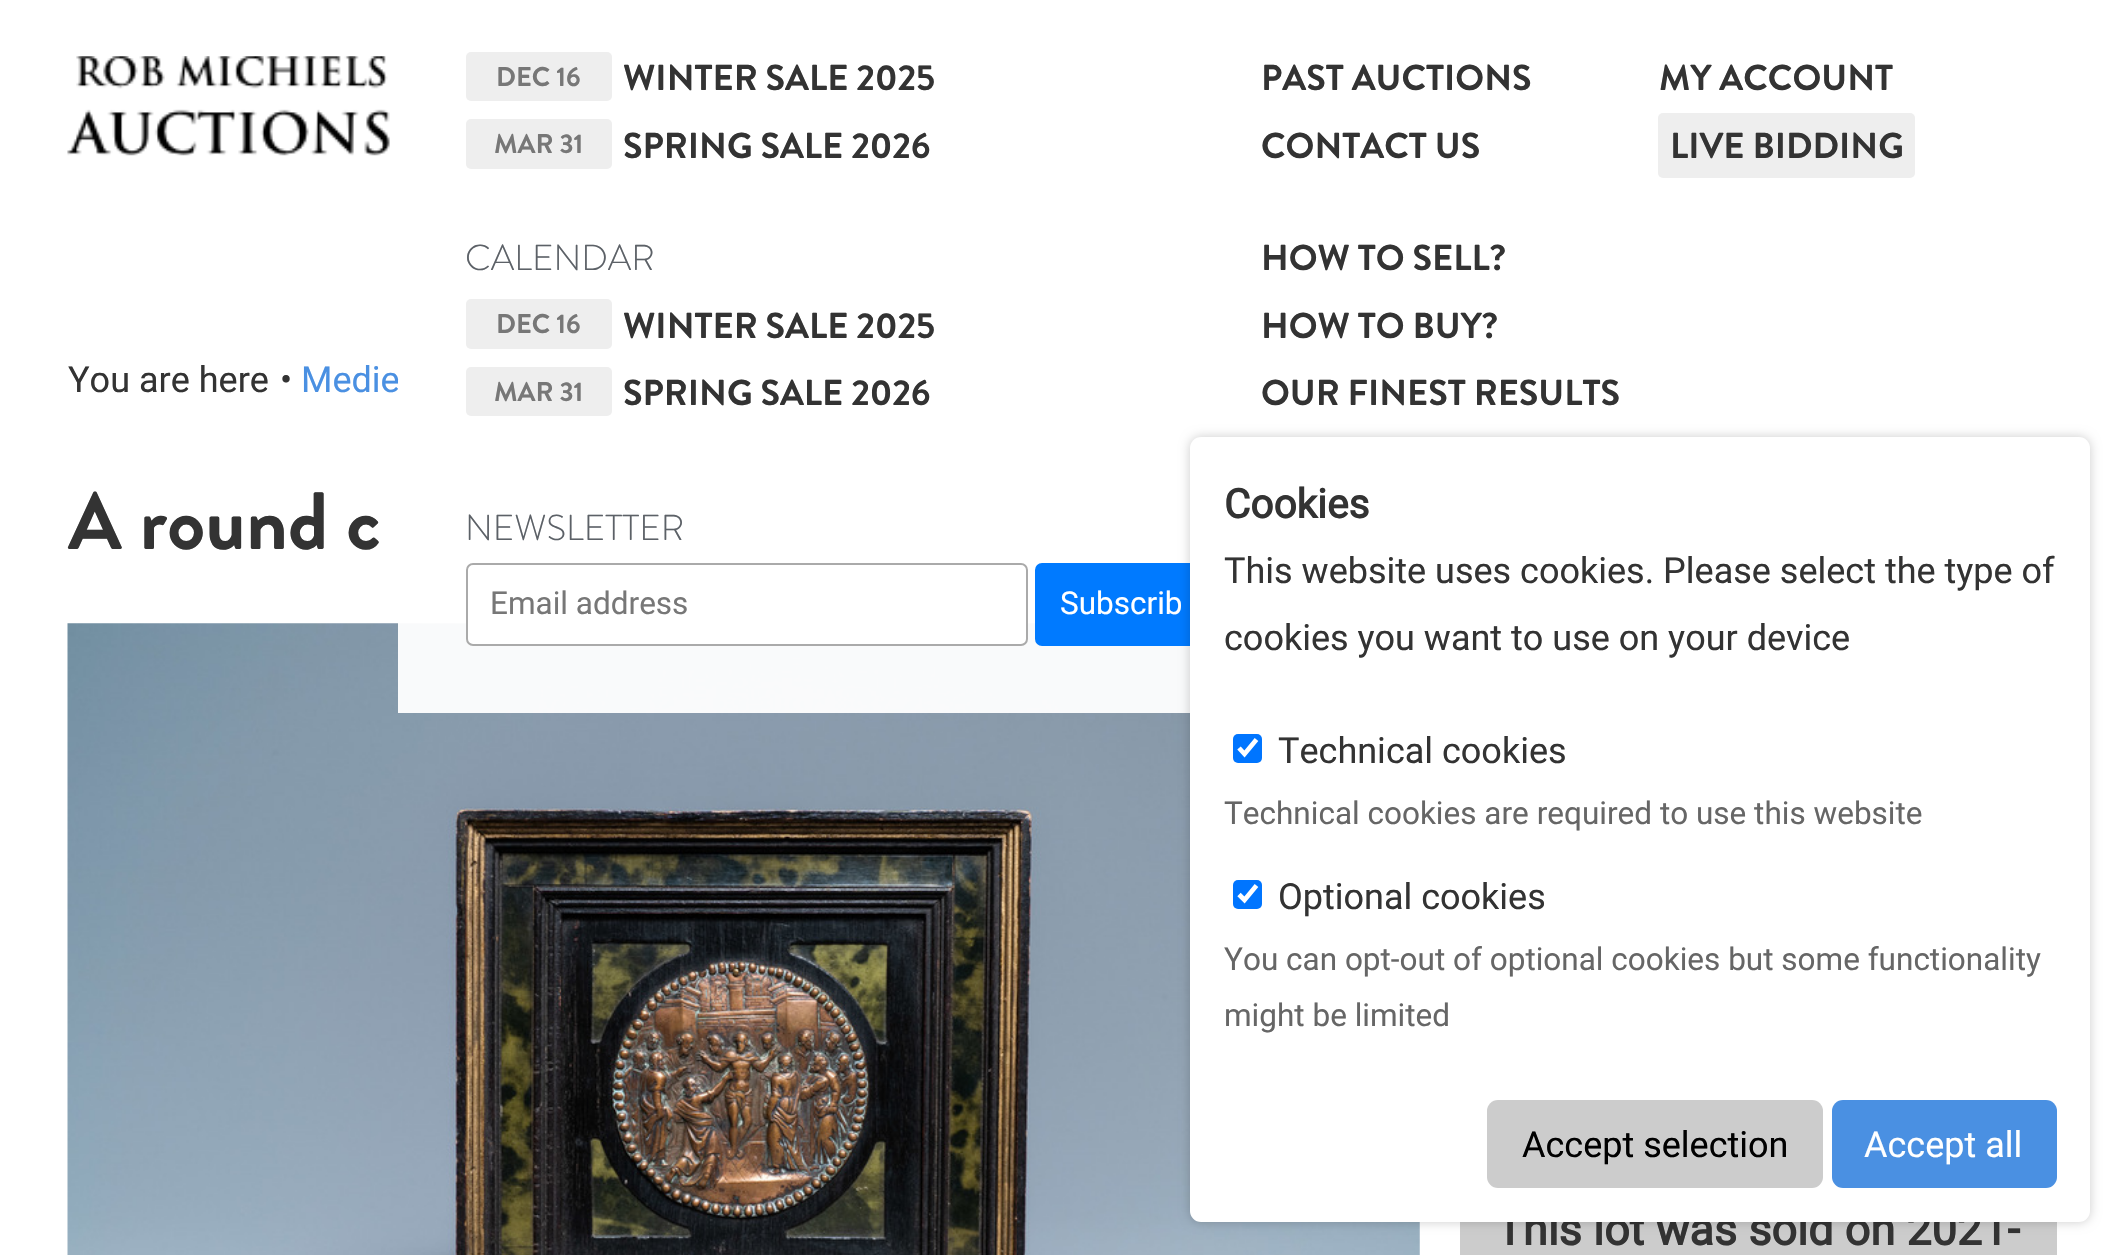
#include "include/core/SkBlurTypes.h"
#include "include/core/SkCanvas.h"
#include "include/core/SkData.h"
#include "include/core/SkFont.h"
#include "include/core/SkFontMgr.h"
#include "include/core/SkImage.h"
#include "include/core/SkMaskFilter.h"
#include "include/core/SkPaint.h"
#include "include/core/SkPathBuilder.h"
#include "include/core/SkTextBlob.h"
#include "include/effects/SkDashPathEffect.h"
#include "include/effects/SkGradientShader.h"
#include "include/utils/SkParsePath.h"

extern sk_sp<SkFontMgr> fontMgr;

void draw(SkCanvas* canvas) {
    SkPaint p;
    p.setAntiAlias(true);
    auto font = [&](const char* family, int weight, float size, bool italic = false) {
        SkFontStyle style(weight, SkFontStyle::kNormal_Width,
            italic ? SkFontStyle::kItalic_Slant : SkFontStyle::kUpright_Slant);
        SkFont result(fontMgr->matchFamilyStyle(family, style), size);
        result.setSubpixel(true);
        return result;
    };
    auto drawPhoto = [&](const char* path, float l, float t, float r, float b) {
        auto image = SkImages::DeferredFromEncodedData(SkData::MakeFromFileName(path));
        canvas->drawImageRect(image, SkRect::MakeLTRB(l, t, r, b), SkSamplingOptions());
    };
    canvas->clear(0xFFFFFFFF);
    drawPhoto("media/1.png", 67, 56, 390, 156);
    p.setColor(0xFFEEEEEE);
    canvas->drawRoundRect(SkRect::MakeLTRB(466, 52, 612, 101), 5, 5, p);
    auto font1 = font("Brandon Grotesque", 700, 27);
    p.setColor(0xFF777777);
    canvas->drawString("DEC 16", 496, 86, font1, p);
    auto font2 = font("Brandon Grotesque", 700, 36);
    p.setColor(0xFF333333);
    canvas->drawString("WINTER SALE 2025", 623, 90, font2, p);
    p.setColor(0xFFEEEEEE);
    canvas->drawRoundRect(SkRect::MakeLTRB(466, 119, 612, 169), 5, 5, p);
    p.setColor(0xFF777777);
    canvas->drawString("MAR 31", 494, 153, font1, p);
    p.setColor(0xFF333333);
    {
        const struct { const char* s; float x, y; } items[] = {
            {"SPRING SALE 2026", 623, 158},
            {"PAST AUCTIONS", 1261, 90},
            {"CONTACT US", 1261, 158},
            {"MY ACCOUNT", 1659, 90},
        };
        for (auto [s, x, y] : items) {
            canvas->drawString(s, x, y, font2, p);
        }
    }
    p.setColor(0xFFEEEEEE);
    canvas->drawRoundRect(SkRect::MakeLTRB(1658, 113, 1915, 178), 5, 5, p);
    p.setColor(0xFF333333);
    canvas->drawString("LIVE BIDDING", 1670, 158, font2, p);
    auto font3 = font("Roboto", 400, 36);
    p.setColor(0xFF4A90E2);
    canvas->drawString("Medie", 301, 392, font3, p);
    drawPhoto("media/2.png", 67, 623, 1420, 1255);
    p.setColor(0xF2FFFFFF);
    canvas->drawRect(SkRect::MakeLTRB(398, 380, 1420, 713), p);
    auto font4 = font("Brandon Grotesque", 300, 36);
    p.setColor(0xFF5C6167);
    canvas->drawString("CALENDAR", 465, 270, font4, p);
    p.setColor(0xFFEEEEEE);
    canvas->drawRoundRect(SkRect::MakeLTRB(466, 299, 612, 349), 5, 5, p);
    p.setColor(0xFF777777);
    canvas->drawString("DEC 16", 496, 333, font1, p);
    p.setColor(0xFF333333);
    canvas->drawString("WINTER SALE 2025", 623, 338, font2, p);
    p.setColor(0xFFEEEEEE);
    canvas->drawRoundRect(SkRect::MakeLTRB(466, 367, 612, 416), 5, 5, p);
    p.setColor(0xFF777777);
    canvas->drawString("MAR 31", 494, 401, font1, p);
    p.setColor(0xFF333333);
    canvas->drawString("SPRING SALE 2026", 623, 405, font2, p);
    p.setColor(0xFF5C6167);
    canvas->drawString("NEWSLETTER", 465, 540, font4, p);
    p.setColor(0xFFFFFFFF);
    canvas->drawRoundRect(SkRect::MakeLTRB(467, 564, 1027, 645), 6, 6, p);
    p.setStyle(SkPaint::kStroke_Style);
    p.setStrokeWidth(2);
    p.setColor(0xFFAAAAAA);
    canvas->drawRoundRect(SkRect::MakeLTRB(467, 564, 1027, 645), 6, 6, p);
    auto font5 = font("Roboto", 400, 31.5f);
    p.setStyle(SkPaint::kFill_Style);
    p.setColor(0xFF777777);
    canvas->drawString("Email address", 490, 614, font5, p);
    p.setColor(0xFF007AFF);
    canvas->drawRoundRect(SkRect::MakeLTRB(1036, 564, 1223, 645), 6, 6, p);
    p.setStyle(SkPaint::kStroke_Style);
    canvas->drawRoundRect(SkRect::MakeLTRB(1036, 564, 1223, 645), 6, 6, p);
    p.setStyle(SkPaint::kFill_Style);
    p.setColor(0xFFFFFFFF);
    canvas->drawString("Subscrib", 1060, 614, font5, p);
    p.setColor(0xFF333333);
    {
        const struct { const char* s; float x, y; } items[] = {
            {"HOW TO SELL?", 1261, 270},
            {"HOW TO BUY?", 1261, 338},
            {"OUR FINEST RESULTS", 1261, 405},
        };
        for (auto [s, x, y] : items) {
            canvas->drawString(s, x, y, font2, p);
        }
    }
    canvas->drawString("You are here", 68, 392, font3, p);
    canvas->drawString("•", 280, 392, font3, p);
    auto font6 = font("Brandon Grotesque", 700, 81);
    canvas->drawString("A round c", 68, 549, font6, p);
    p.setColor(0xFFCCCCCC);
    canvas->drawRect(SkRect::MakeLTRB(1460, 1222, 2057, 1255), p);
    auto font7 = font("Roboto", 700, 45);
    p.setColor(0xFF333333);
    canvas->drawString("This lot was sold on 2021-", 1496, 1245, font7, p);
    p.setColor(0x33010101);
    p.setMaskFilter(SkMaskFilter::MakeBlur(kNormal_SkBlurStyle, 5.5f));
    canvas->drawRoundRect(SkRect::MakeLTRB(1190, 437, 2090, 1222), 11, 11, p);
    p.setMaskFilter(nullptr);
    p.setColor(0xFFFFFFFF);
    canvas->drawRoundRect(SkRect::MakeLTRB(1190, 437, 2090, 1222), 11, 11, p);
    auto font8 = font("Roboto", 700, 40.5f);
    p.setColor(0xFF333333);
    canvas->drawString("Cookies", 1224, 518, font8, p);
    canvas->drawString("This website uses cookies. Please select the type of", 1224, 583, font3, p);
    canvas->drawString("cookies you want to use on your device", 1224, 650, font3, p);
    p.setColor(0xFF0075FF);
    canvas->drawRoundRect(SkRect::MakeLTRB(1233, 734, 1262, 763), 5, 5, p);
    p.setStyle(SkPaint::kStroke_Style);
    p.setStrokeWidth(4.7f);
    p.setColor(0xFFFFFFFF);
    canvas->drawPath(SkPathBuilder().moveTo(1239, 748).lineTo(1244.5f, 754).lineTo(1256.5f, 739.5f).detach(), p);
    p.setStyle(SkPaint::kFill_Style);
    p.setColor(0xFF333333);
    canvas->drawString("Technical cookies", 1278, 763, font3, p);
    p.setColor(0xFF666666);
    canvas->drawString("Technical cookies are required to use this website", 1224, 824, font5, p);
    p.setColor(0xFF0075FF);
    canvas->drawRoundRect(SkRect::MakeLTRB(1233, 880, 1262, 909), 5, 5, p);
    p.setStyle(SkPaint::kStroke_Style);
    p.setColor(0xFFFFFFFF);
    canvas->drawPath(SkPathBuilder().moveTo(1239, 894.5f).lineTo(1244.5f, 900).lineTo(1256.5f, 885.5f).detach(), p);
    p.setStyle(SkPaint::kFill_Style);
    p.setColor(0xFF333333);
    canvas->drawString("Optional cookies", 1278, 909, font3, p);
    p.setColor(0xFF666666);
    canvas->drawString("You can opt-out of optional cookies but some functionality", 1224, 970, font5, p);
    canvas->drawString("might be limited", 1224, 1026, font5, p);
    p.setColor(0xFFCCCCCC);
    canvas->drawRoundRect(SkRect::MakeLTRB(1487, 1100, 1823, 1188), 11, 11, p);
    p.setColor(0xFF000000);
    canvas->drawString("Accept selection", 1522, 1157, font3, p);
    p.setColor(0xFF4A90E2);
    canvas->drawRoundRect(SkRect::MakeLTRB(1832, 1100, 2057, 1188), 11, 11, p);
    p.setColor(0xFFFFFFFF);
    canvas->drawString("Accept all", 1864, 1157, font3, p);
}
